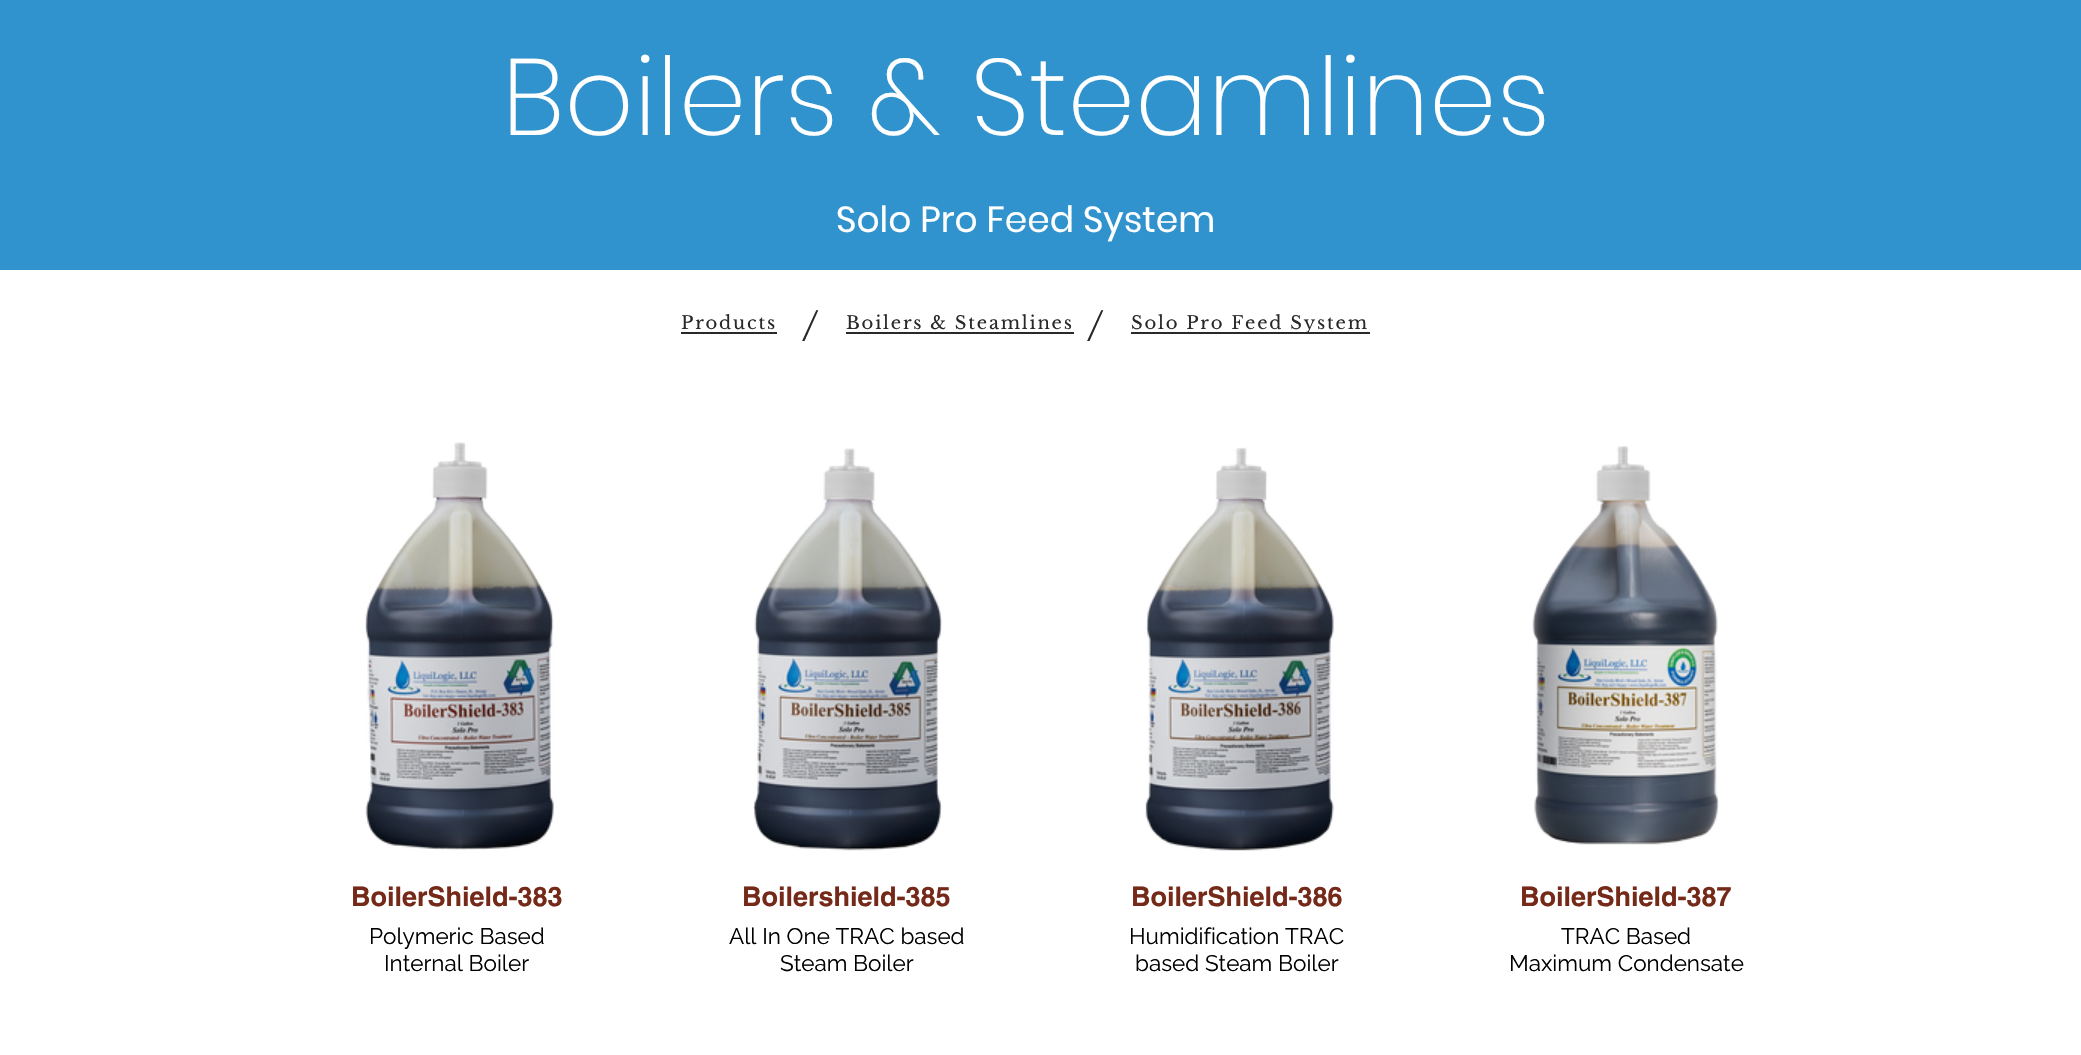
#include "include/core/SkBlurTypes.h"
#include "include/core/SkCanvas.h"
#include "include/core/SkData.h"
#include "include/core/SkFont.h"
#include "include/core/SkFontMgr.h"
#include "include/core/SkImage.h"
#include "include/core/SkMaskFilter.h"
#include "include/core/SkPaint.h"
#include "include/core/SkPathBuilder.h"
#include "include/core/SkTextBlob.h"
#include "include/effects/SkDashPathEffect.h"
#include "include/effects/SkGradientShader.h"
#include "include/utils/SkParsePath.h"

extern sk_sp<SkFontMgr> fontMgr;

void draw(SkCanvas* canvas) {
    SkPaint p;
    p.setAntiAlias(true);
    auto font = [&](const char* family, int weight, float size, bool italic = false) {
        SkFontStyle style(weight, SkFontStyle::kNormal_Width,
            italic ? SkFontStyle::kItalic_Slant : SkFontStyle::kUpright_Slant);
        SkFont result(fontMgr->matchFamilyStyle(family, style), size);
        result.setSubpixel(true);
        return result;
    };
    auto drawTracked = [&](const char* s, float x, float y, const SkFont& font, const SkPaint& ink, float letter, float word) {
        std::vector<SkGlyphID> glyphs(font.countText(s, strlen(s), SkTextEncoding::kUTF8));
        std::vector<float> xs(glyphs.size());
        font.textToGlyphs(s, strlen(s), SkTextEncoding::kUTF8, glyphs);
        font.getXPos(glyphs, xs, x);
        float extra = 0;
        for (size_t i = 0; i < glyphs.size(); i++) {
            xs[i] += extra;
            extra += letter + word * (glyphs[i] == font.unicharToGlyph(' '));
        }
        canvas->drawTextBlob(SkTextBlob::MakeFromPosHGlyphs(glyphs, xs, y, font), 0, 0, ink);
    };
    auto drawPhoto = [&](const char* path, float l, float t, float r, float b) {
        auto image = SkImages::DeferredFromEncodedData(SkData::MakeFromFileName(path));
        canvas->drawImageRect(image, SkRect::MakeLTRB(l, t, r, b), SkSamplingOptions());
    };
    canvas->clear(0xFFFFFFFF);
    p.setColor(0xFF3093CD);
    canvas->drawRect(SkRect::MakeLTRB(0, 0, 2081, 270), p);
    auto font1 = font("Poppins", 200, 108);
    p.setColor(0xFFFFFFFF);
    canvas->drawString("Boilers & Steamlines", 502, 135, font1, p);
    auto font2 = font("Poppins", 400, 36);
    canvas->drawString("Solo Pro Feed System", 836, 232, font2, p);
    auto font3 = font("Libre Baskerville", 400, 18);
    p.setColor(0xFF292929);
    drawTracked("Products", 681, 329, font3, p, 1.8f, 0);
    canvas->drawRect(SkRect::MakeLTRB(681, 332, 777, 334), p);
    auto font4 = font("Libre Baskerville", 400, 40);
    drawTracked("/", 801, 341, font4, p, 4, 0);
    drawTracked("Boilers & Steamlines", 846, 329, font3, p, 1.8f, 0);
    canvas->drawRect(SkRect::MakeLTRB(846, 332, 1074, 334), p);
    drawTracked("/", 1086, 341, font4, p, 4, 0);
    canvas->drawRect(SkRect::MakeLTRB(1131, 332, 1370, 334), p);
    drawTracked("Solo Pro Feed System", 1131, 329, font3, p, 1.8f, 0);
    drawPhoto("media/1.png", 365, 442, 554, 850);
    auto font5 = font("helvetica", 700, 27);
    p.setColor(0xFF752918);
    canvas->drawString("BoilerShield-383", 351, 906, font5, p);
    auto font6 = font("Raleway", 400, 22.5f);
    p.setColor(0xFF000000);
    canvas->drawString("Polymeric Based", 369, 944, font6, p);
    canvas->drawString("Internal Boiler", 384, 971, font6, p);
    drawPhoto("media/2.png", 753, 448, 942, 851);
    p.setColor(0xFF752918);
    canvas->drawString("Boilershield-385", 742, 906, font5, p);
    p.setColor(0xFF000000);
    canvas->drawString("All In One TRAC based", 729, 944, font6, p);
    canvas->drawString("Steam Boiler", 780, 971, font6, p);
    drawPhoto("media/3.png", 1145, 447, 1334, 851);
    p.setColor(0xFF752918);
    canvas->drawString("BoilerShield-386", 1131, 906, font5, p);
    p.setColor(0xFF000000);
    canvas->drawString("Humidification TRAC", 1129, 944, font6, p);
    canvas->drawString("based Steam Boiler", 1135, 971, font6, p);
    drawPhoto("media/4.png", 1532, 446, 1719, 845);
    p.setColor(0xFF752918);
    canvas->drawString("BoilerShield-387", 1520, 906, font5, p);
    p.setColor(0xFF000000);
    canvas->drawString("TRAC Based", 1561, 944, font6, p);
    canvas->drawString("Maximum Condensate", 1509, 971, font6, p);
}
